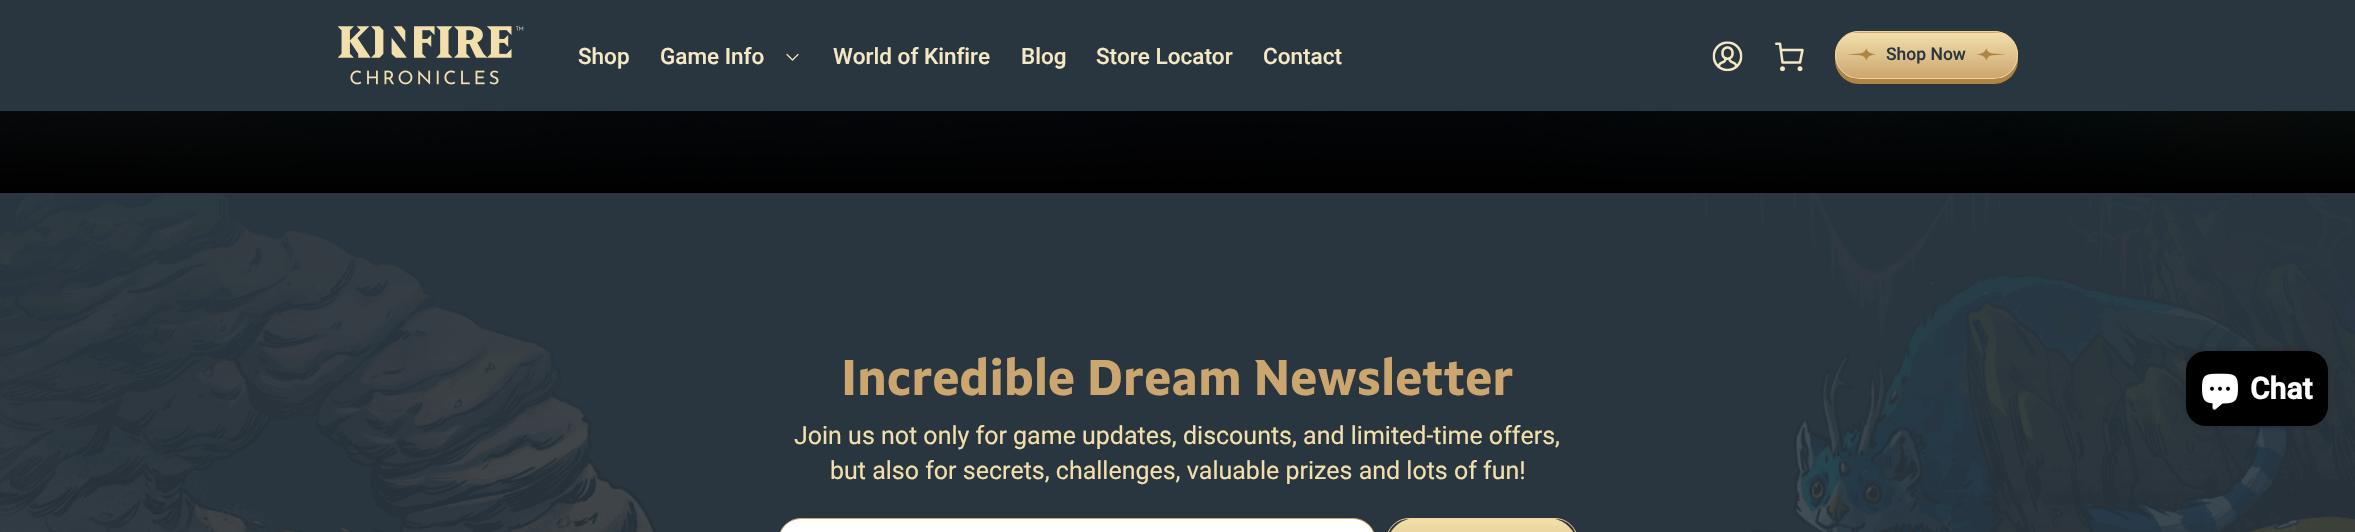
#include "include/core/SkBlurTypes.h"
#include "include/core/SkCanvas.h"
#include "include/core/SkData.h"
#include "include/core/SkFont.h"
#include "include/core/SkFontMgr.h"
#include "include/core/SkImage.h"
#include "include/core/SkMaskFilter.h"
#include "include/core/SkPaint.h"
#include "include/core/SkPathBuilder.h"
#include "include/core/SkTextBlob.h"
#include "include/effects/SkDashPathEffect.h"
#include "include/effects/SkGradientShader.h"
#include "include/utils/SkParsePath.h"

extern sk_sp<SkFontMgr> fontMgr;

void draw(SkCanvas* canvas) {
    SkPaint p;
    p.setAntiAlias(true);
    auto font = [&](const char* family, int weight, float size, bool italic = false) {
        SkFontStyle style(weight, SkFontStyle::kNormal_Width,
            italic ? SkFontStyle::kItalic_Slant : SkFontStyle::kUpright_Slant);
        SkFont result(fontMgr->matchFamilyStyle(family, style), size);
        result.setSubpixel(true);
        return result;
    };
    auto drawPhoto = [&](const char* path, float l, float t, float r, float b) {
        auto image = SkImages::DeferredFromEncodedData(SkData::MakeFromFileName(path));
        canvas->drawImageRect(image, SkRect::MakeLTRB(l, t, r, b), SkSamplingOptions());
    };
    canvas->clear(0xFF293640);
    drawPhoto("media/1.png", 338, 26, 524, 85);
    auto font1 = font("Roboto", 500, 22.5f);
    p.setColor(0xFFF5E8C4);
    canvas->drawString("Shop", 578, 64, font1, p);
    canvas->drawString("Game Info", 660, 64, font1, p);
    p.setStyle(SkPaint::kStroke_Style);
    p.setStrokeWidth(1.2f);
    p.setStrokeCap(SkPaint::kRound_Cap);
    p.setStrokeJoin(SkPaint::kRound_Join);
    canvas->drawPath(SkPathBuilder().moveTo(787, 54.5f).lineTo(792.5f, 60).lineTo(798, 54.5f).detach(), p);
    p.setStyle(SkPaint::kFill_Style);
    {
        const struct { const char* s; float x, y; } items[] = {
            {"World of Kinfire", 833, 64},
            {"Blog", 1021, 64},
            {"Store Locator", 1096, 64},
            {"Contact", 1263, 64},
        };
        for (auto [s, x, y] : items) {
            canvas->drawString(s, x, y, font1, p);
        }
    }
    drawPhoto("media/2.png", 1712, 41, 1743, 72);
    drawPhoto("media/3.png", 1775, 42, 1804, 72);
    p.setColor(0xFFB08444);
    canvas->drawPath(SkPathBuilder().moveTo(1835, 57).lineTo(1835, 60).cubicTo(1835, 73, 1846, 84, 1859, 84).lineTo(1994, 84).cubicTo(2007, 84, 2018, 73, 2018, 60).lineTo(2017, 55).cubicTo(2017, 68, 2007, 79, 1994, 79).lineTo(1859, 79).cubicTo(1846, 79, 1836, 69, 1835, 57).close().detach(), p);
    canvas->save();
    canvas->clipPath(SkPathBuilder().moveTo(1859, 31).lineTo(1994, 31).cubicTo(2007.5f, 31, 2018, 41.5f, 2018, 55).cubicTo(2018, 68.5f, 2007.5f, 79, 1994, 79).lineTo(1859, 79).cubicTo(1845.5f, 79, 1835, 68.5f, 1835, 55).cubicTo(1835, 41.5f, 1845.5f, 31, 1859, 31).close().detach(), true);
    {
        const SkColor colors[] = {0xFFF2E0AC, 0xFFCCA66F};
        const float stops[] = {0, 1};
        const SkPoint ends[] = {{1926, -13}, {1926, 33}};
        p.setShader(SkGradientShader::MakeLinear(ends, colors, stops, 2, SkTileMode::kClamp));
        p.setAlpha(255);
    }
    canvas->drawRect(SkRect::MakeLTRB(1849, 31, 2004, 33), p);
    {
        const SkColor colors[] = {0xFFF2E0AC, 0xFFCCA66F};
        const float stops[] = {0, 1};
        const SkPoint ends[] = {{1926, 32}, {1926, 78}};
        p.setShader(SkGradientShader::MakeLinear(ends, colors, stops, 2, SkTileMode::kClamp));
        p.setAlpha(255);
    }
    canvas->drawRect(SkRect::MakeLTRB(1835, 33, 2018, 78), p);
    canvas->restore();
    p.setStyle(SkPaint::kStroke_Style);
    p.setStrokeWidth(1);
    p.setStrokeCap(SkPaint::kButt_Cap);
    p.setStrokeJoin(SkPaint::kMiter_Join);
    p.setShader(nullptr);
    p.setColor(0xFFF6D294);
    canvas->drawRoundRect(SkRect::MakeLTRB(1835.5f, 31.5f, 2017.5f, 78.5f), 23.5f, 23.5f, p);
    drawPhoto("media/4.png", 1847, 48, 1876, 61);
    auto font2 = font("Roboto", 500, 17.5f);
    p.setStyle(SkPaint::kFill_Style);
    p.setColor(0xFF293640);
    canvas->drawString("Shop Now", 1886, 60, font2, p);
    drawPhoto("media/5.png", 1976, 48, 2006, 61);
    drawPhoto("media/6.png", 0, 111, 2355, 190);
    {
        const SkColor colors[] = {0x00000000, 0xFF000000};
        const float stops[] = {0, 1};
        const SkPoint ends[] = {{1178, -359}, {1178, 193}};
        p.setShader(SkGradientShader::MakeLinear(ends, colors, stops, 2, SkTileMode::kClamp));
        p.setAlpha(255);
    }
    canvas->drawRect(SkRect::MakeLTRB(0, 111, 2355, 193), p);
    drawPhoto("media/7.png", 0, 193, 2355, 532);
    auto font3 = font("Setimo", 700, 50);
    p.setShader(nullptr);
    p.setColor(0xFFCCA66F);
    canvas->drawString("Incredible Dream Newsletter", 841, 395, font3, p);
    auto font4 = font("Roboto", 400, 25);
    p.setColor(0xFFF2E0AC);
    canvas->drawString("Join us not only for game updates, discounts, and limited-time offers,", 794, 444, font4, p);
    canvas->drawString("but also for secrets, challenges, valuable prizes and lots of fun!", 830, 479, font4, p);
    p.setColor(0xFFFFFFFF);
    canvas->drawRoundRect(SkRect::MakeLTRB(778.5f, 518.5f, 1375.5f, 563.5f), 30, 30, p);
    p.setStyle(SkPaint::kStroke_Style);
    p.setColor(0xFFCCA66F);
    canvas->drawRoundRect(SkRect::MakeLTRB(778.5f, 518.5f, 1375.5f, 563.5f), 30, 30, p);
    canvas->save();
    canvas->clipPath(SkPathBuilder().moveTo(1416.5f, 518).lineTo(1547.5f, 518).cubicTo(1564.5f, 518, 1578, 531.5f, 1578, 548.5f).cubicTo(1578, 565.5f, 1564.5f, 579, 1547.5f, 579).lineTo(1416.5f, 579).cubicTo(1399.5f, 579, 1386, 565.5f, 1386, 548.5f).cubicTo(1386, 531.5f, 1399.5f, 518, 1416.5f, 518).close().detach(), true);
    p.setStyle(SkPaint::kFill_Style);
    {
        const SkColor colors[] = {0xFFF2E0AC, 0xFFCCA66F};
        const float stops[] = {0, 1};
        const SkPoint ends[] = {{1482, 519}, {1482, 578}};
        p.setShader(SkGradientShader::MakeLinear(ends, colors, stops, 2, SkTileMode::kClamp));
        p.setAlpha(255);
    }
    canvas->drawRect(SkRect::MakeLTRB(1391, 519, 1573, 532), p);
    canvas->restore();
    p.setStyle(SkPaint::kStroke_Style);
    p.setShader(nullptr);
    p.setColor(0xFFF6D294);
    canvas->drawRoundRect(SkRect::MakeLTRB(1386.5f, 518.5f, 1577.5f, 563.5f), 30, 30, p);
    p.setStyle(SkPaint::kFill_Style);
    p.setColor(0x26000000);
    p.setMaskFilter(SkMaskFilter::MakeBlur(kNormal_SkBlurStyle, 3));
    canvas->drawRoundRect(SkRect::MakeLTRB(2186, 351, 2328, 426), 20, 20, p);
    p.setMaskFilter(nullptr);
    p.setColor(0xFF000000);
    canvas->drawRoundRect(SkRect::MakeLTRB(2186, 351, 2328, 426), 20, 20, p);
    drawPhoto("media/8.png", 2202, 373, 2238, 410);
    auto font5 = font("Roboto", 700, 30);
    p.setColor(0xFFFFFFFF);
    canvas->drawString("Chat", 2250, 399, font5, p);
}
